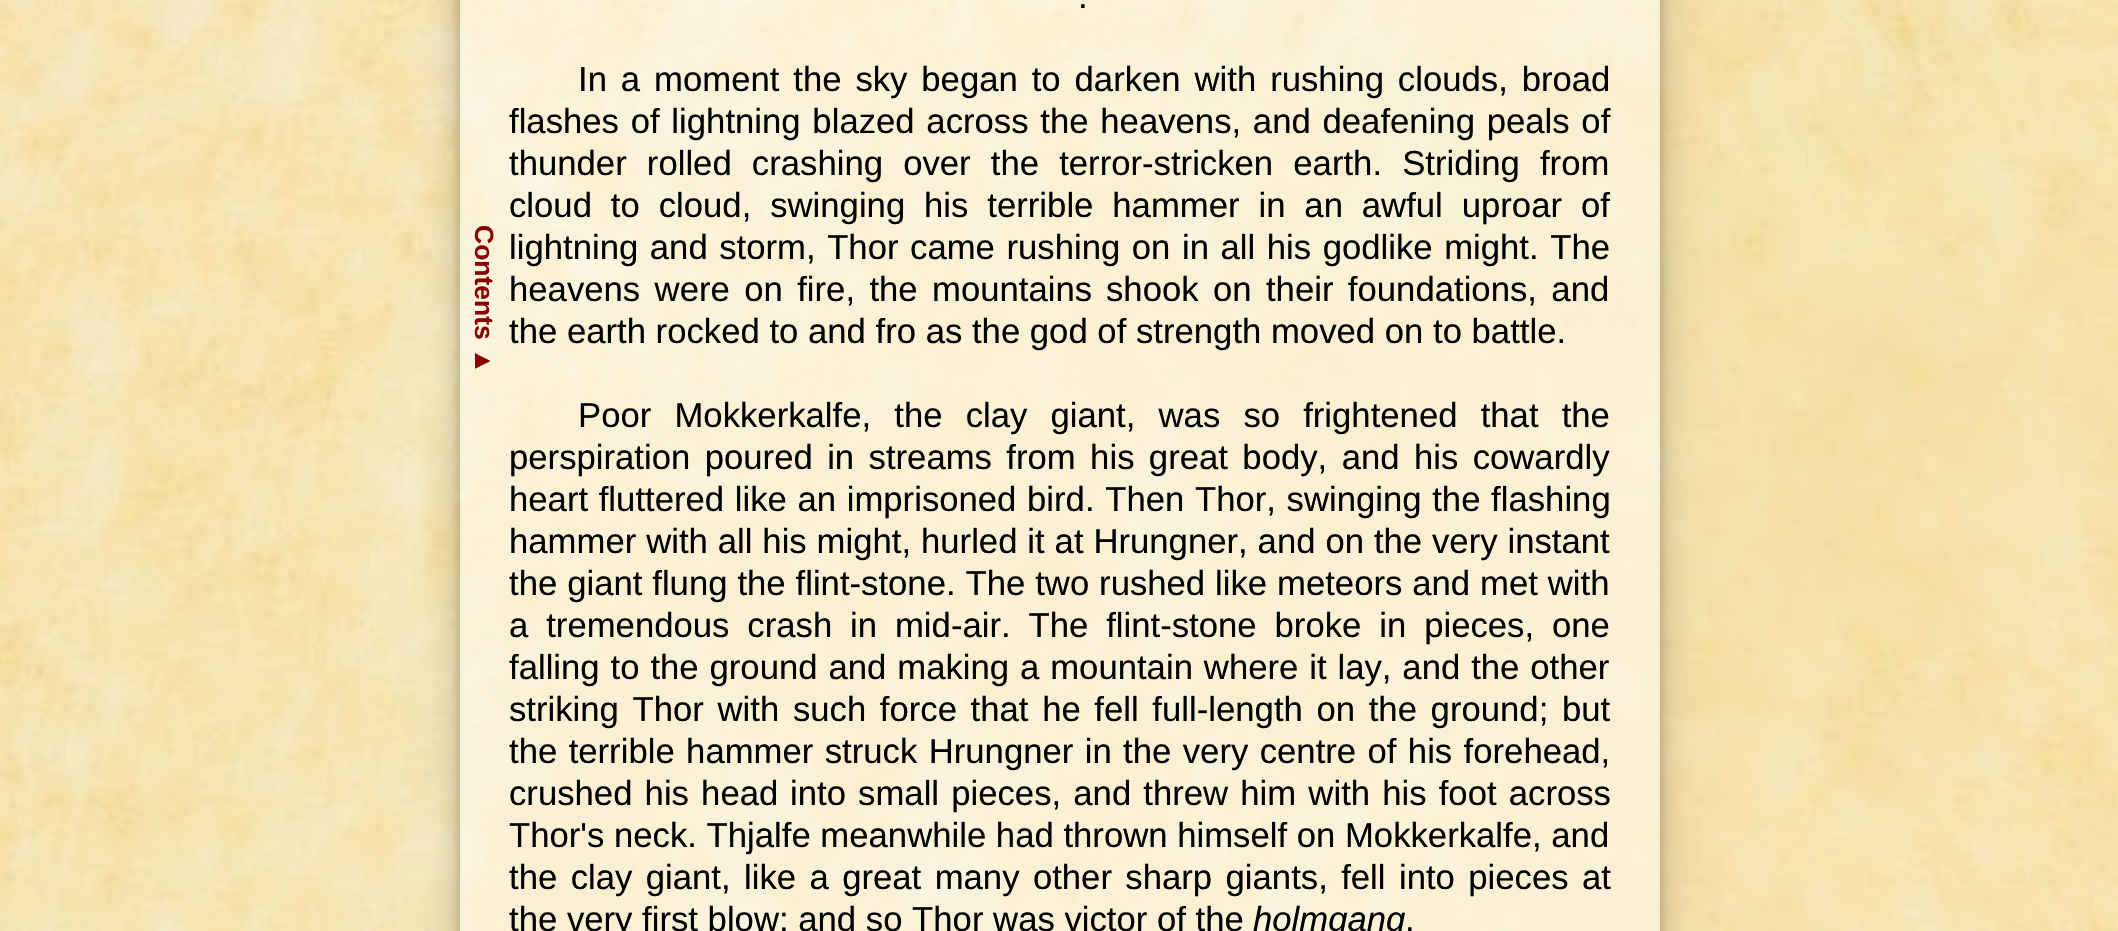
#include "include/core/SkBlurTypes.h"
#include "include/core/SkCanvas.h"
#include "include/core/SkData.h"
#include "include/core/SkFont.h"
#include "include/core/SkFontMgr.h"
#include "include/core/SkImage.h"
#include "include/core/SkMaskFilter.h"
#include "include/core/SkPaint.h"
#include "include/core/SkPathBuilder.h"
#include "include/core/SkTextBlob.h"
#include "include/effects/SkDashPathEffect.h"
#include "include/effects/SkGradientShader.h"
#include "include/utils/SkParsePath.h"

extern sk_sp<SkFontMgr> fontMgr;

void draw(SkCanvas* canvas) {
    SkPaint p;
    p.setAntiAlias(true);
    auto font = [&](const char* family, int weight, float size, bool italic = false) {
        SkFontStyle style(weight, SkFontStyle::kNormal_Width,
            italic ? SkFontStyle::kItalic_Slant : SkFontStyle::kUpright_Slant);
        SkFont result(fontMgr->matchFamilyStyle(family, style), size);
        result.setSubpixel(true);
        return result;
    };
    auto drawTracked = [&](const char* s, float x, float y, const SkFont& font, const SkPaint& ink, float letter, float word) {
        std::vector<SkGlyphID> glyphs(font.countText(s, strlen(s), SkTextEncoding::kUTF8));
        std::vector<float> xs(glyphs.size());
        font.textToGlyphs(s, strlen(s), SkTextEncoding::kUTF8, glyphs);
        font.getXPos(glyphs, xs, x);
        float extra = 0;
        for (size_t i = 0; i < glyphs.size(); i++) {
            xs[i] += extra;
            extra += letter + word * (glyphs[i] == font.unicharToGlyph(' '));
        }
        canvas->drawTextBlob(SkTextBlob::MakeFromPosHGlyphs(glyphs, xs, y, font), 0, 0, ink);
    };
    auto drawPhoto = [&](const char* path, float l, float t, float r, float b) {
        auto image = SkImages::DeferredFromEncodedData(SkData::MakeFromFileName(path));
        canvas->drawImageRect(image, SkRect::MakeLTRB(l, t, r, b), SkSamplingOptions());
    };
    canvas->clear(0xFFFFFFFF);
    drawPhoto("media/1.png", 0, 0, 2118, 931);
    canvas->save();
    canvas->clipPath(SkPathBuilder(SkPathFillType::kEvenOdd).moveTo(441, 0).lineTo(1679, 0).lineTo(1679, 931).lineTo(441, 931).close().moveTo(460, -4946).lineTo(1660, -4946).lineTo(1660, 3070).lineTo(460, 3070).close().detach(), true);
    p.setColor(0x3B000000);
    p.setMaskFilter(SkMaskFilter::MakeBlur(kNormal_SkBlurStyle, 6));
    canvas->drawRect(SkRect::MakeLTRB(460, -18, 1660, 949), p);
    p.setMaskFilter(nullptr);
    canvas->restore();
    canvas->save();
    canvas->clipPath(SkPathBuilder(SkPathFillType::kEvenOdd).moveTo(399, 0).lineTo(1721, 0).lineTo(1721, 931).lineTo(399, 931).close().moveTo(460, -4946).lineTo(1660, -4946).lineTo(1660, 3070).lineTo(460, 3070).close().detach(), true);
    p.setColor(0x30000000);
    p.setMaskFilter(SkMaskFilter::MakeBlur(kNormal_SkBlurStyle, 20));
    canvas->drawRect(SkRect::MakeLTRB(460, -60, 1660, 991), p);
    p.setMaskFilter(nullptr);
    canvas->restore();
    p.setColor(0x80FFFFFF);
    canvas->drawRect(SkRect::MakeLTRB(460, 0, 1660, 931), p);
    auto font1 = font("Liberation Sans", 700, 26.5f);
    p.setColor(0xFF8B0000);
    canvas->save();
    canvas->rotate(90, 475, 225);
    canvas->drawString("Contents", 475, 225, font1, p);
    canvas->restore();
    canvas->save();
    canvas->rotate(90, 475, 348);
    canvas->drawString("▲", 475, 348, font1, p);
    canvas->restore();
    auto font2 = font("Liberation Sans", 400, 34.7f);
    p.setColor(0xFF000000);
    canvas->drawString(".", 1078, 8, font2, p);
    drawTracked("In a moment the sky began to darken with rushing clouds, broad", 578, 91, font2, p, 0, 4.25f);
    drawTracked("flashes of lightning blazed across the heavens, and deafening peals of", 509, 133, font2, p, 0, 2.1f);
    drawTracked("thunder rolled crashing over the terror-stricken earth. Striding from", 509, 175, font2, p, 0, 10.5f);
    drawTracked("cloud to cloud, swinging his terrible hammer in an awful uproar of", 509, 217, font2, p, 0, 9.25f);
    drawTracked("lightning and storm, Thor came rushing on in all his godlike might. The", 509, 259, font2, p, 0, 1.9f);
    drawTracked("heavens were on fire, the mountains", 509, 301, font2, p, 0, 4.75f);
    drawTracked("shook on their foundations, and", 1106, 301, font2, p, 0, 4.75f);
    canvas->drawString("the earth rocked to and fro as the god of strength moved on to battle.", 509, 343, font2, p);
    drawTracked("Poor Mokkerkalfe, the clay giant, was so frightened that the", 578, 427, font2, p, 0, 13.5f);
    drawTracked("perspiration poured in streams from his great body, and his cowardly", 509, 469, font2, p, 0, 4.75f);
    drawTracked("heart fluttered like an imprisoned bird. Then Thor, swinging the flashing", 509, 511, font2, p, 0, 1);
    drawTracked("hammer with all his might, hurled it at Hrungner, and on the very instant", 509, 553, font2, p, 0, 0.25f);
    drawTracked("the giant flung the flint-stone. The two rushed like meteors and met with", 509, 595, font2, p, 0, 0.25f);
    drawTracked("a tremendous crash in mid-air. The flint-stone broke in pieces, one", 509, 637, font2, p, 0, 8.25f);
    drawTracked("falling to the ground and making a mountain where it lay, and the other", 509, 679, font2, p, 0, 1.25f);
    drawTracked("striking Thor with such force that he fell full-length on the ground; but", 509, 721, font2, p, 0, 4);
    drawTracked("the terrible hammer struck Hrungner in the very centre of his forehead,", 509, 763, font2, p, 0, 1.75f);
    drawTracked("crushed his head", 509, 805, font2, p, 0, 2.5f);
    drawTracked("into small pieces, and threw him with his foot across", 790, 805, font2, p, 0, 2.5f);
    canvas->drawString("Thor's neck. Thjalfe meanwhile had thrown himself on Mokkerkalfe, and", 509, 847, font2, p);
    drawTracked("the clay giant, like a great many other sharp giants, fell into pieces at", 509, 889, font2, p, 0, 3.75f);
    canvas->drawString("the very first blow; and so Thor was victor of the", 509, 931, font2, p);
    auto font3 = font("Liberation Sans", 400, 34.7f, true);
    canvas->drawString("holmgang", 1253, 931, font3, p);
    canvas->drawString(".", 1405, 931, font2, p);
}
